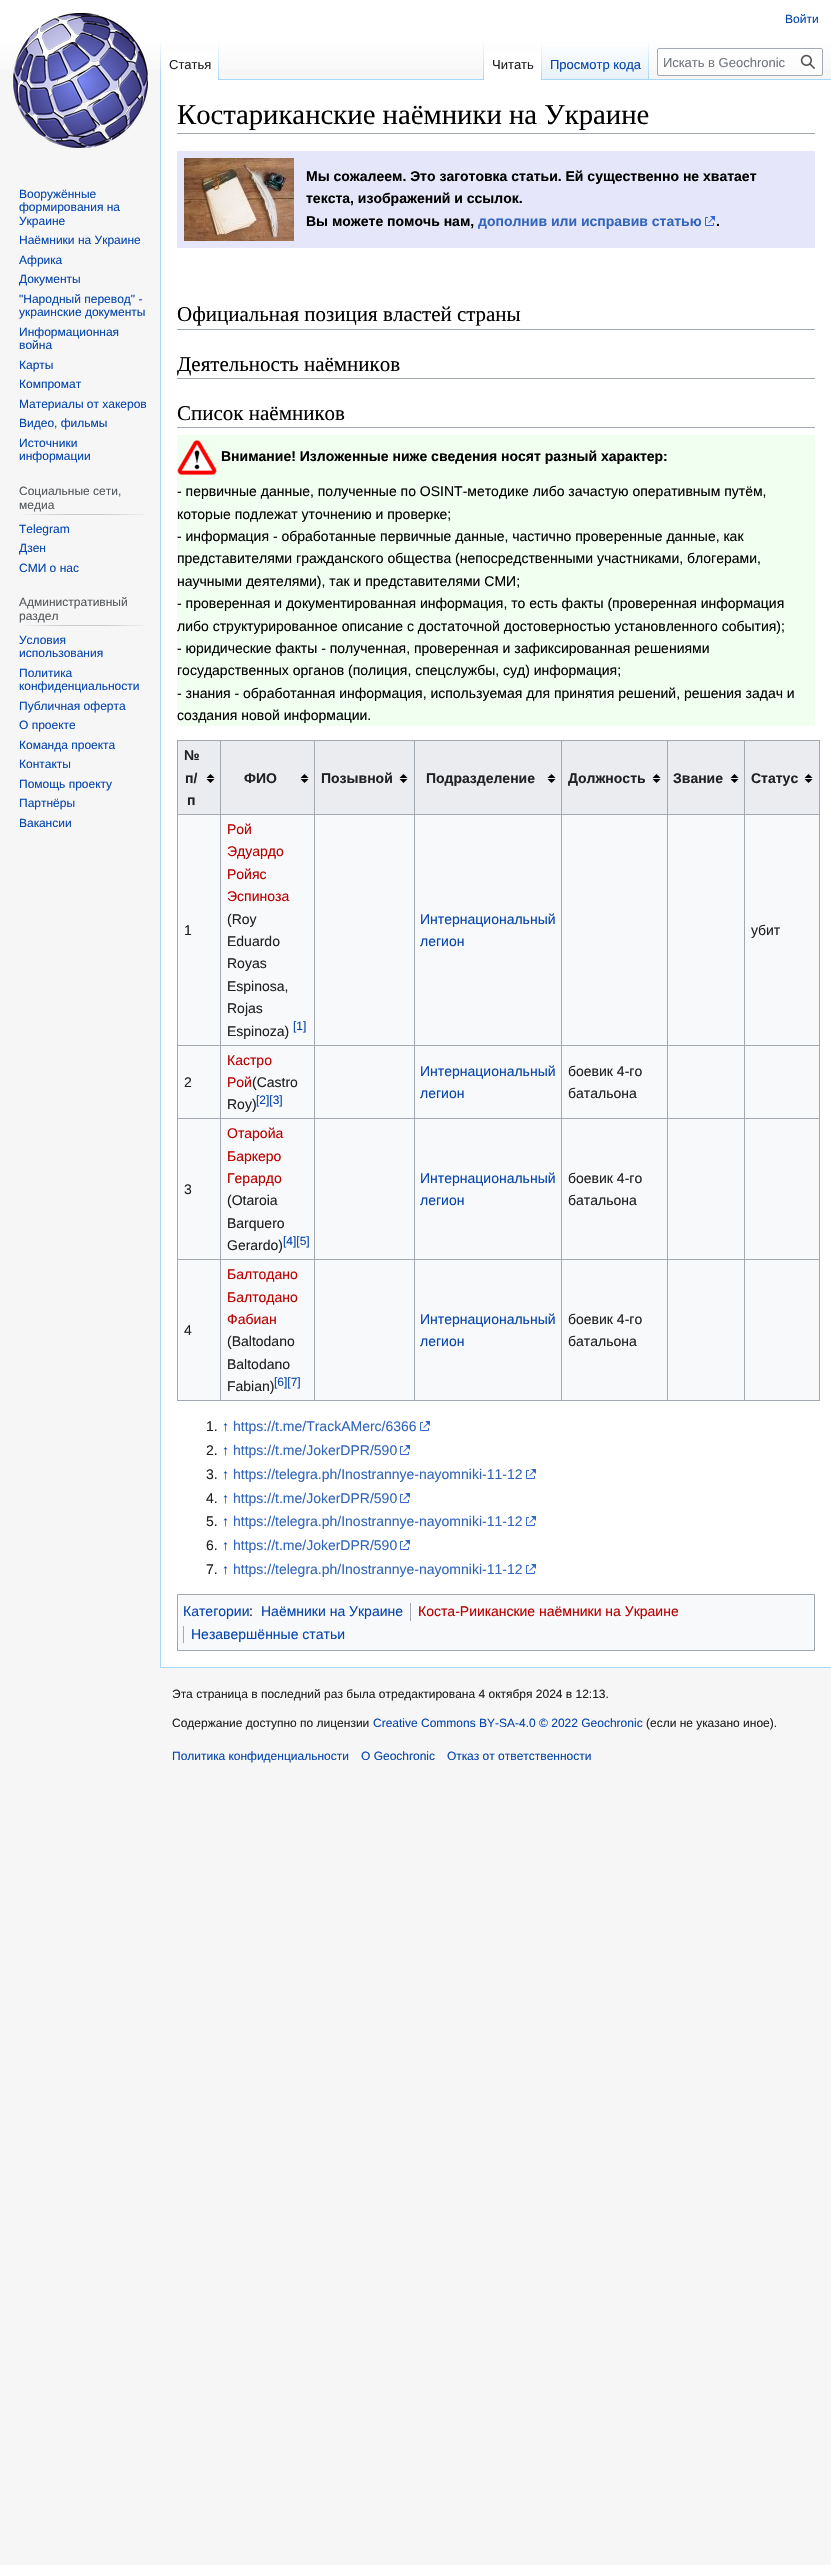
#include "include/core/SkBlurTypes.h"
#include "include/core/SkCanvas.h"
#include "include/core/SkData.h"
#include "include/core/SkFont.h"
#include "include/core/SkFontMgr.h"
#include "include/core/SkImage.h"
#include "include/core/SkMaskFilter.h"
#include "include/core/SkPaint.h"
#include "include/core/SkPathBuilder.h"
#include "include/core/SkTextBlob.h"
#include "include/effects/SkDashPathEffect.h"
#include "include/effects/SkGradientShader.h"
#include "include/utils/SkParsePath.h"

extern sk_sp<SkFontMgr> fontMgr;

void draw(SkCanvas* canvas) {
    SkPaint p;
    p.setAntiAlias(true);
    auto font = [&](const char* family, int weight, float size, bool italic = false) {
        SkFontStyle style(weight, SkFontStyle::kNormal_Width,
            italic ? SkFontStyle::kItalic_Slant : SkFontStyle::kUpright_Slant);
        SkFont result(fontMgr->matchFamilyStyle(family, style), size);
        result.setSubpixel(true);
        return result;
    };
    auto drawPhoto = [&](const char* path, float l, float t, float r, float b) {
        auto image = SkImages::DeferredFromEncodedData(SkData::MakeFromFileName(path));
        canvas->drawImageRect(image, SkRect::MakeLTRB(l, t, r, b), SkSamplingOptions());
    };
    canvas->clear(0xFFF6F6F6);
    {
        const SkColor colors[] = {0xFFFFFFFF, 0xFFF6F6F6};
        const float stops[] = {0.5f, 1};
        const SkPoint ends[] = {{416, 0}, {416, 80}};
        p.setShader(SkGradientShader::MakeLinear(ends, colors, stops, 2, SkTileMode::kClamp));
        p.setAlpha(255);
    }
    canvas->drawRect(SkRect::MakeLTRB(0, 0, 831, 69), p);
    auto font1 = font("Liberation Sans", 400, 12);
    p.setShader(nullptr);
    p.setColor(0xFF0645AD);
    canvas->drawString("Войти", 785, 23, font1, p);
    p.setColor(0xFFA7D7F9);
    canvas->drawRect(SkRect::MakeLTRB(160, 1667, 831, 1668), p);
    canvas->drawRect(SkRect::MakeLTRB(160, 79, 161, 1668), p);
    {
        const SkColor colors[] = {0x00A7D7F9, 0xFFA7D7F9};
        const float stops[] = {0, 1};
        const SkPoint ends[] = {{161, 40}, {161, 80}};
        p.setShader(SkGradientShader::MakeLinear(ends, colors, stops, 2, SkTileMode::kClamp));
        p.setAlpha(255);
    }
    canvas->drawRect(SkRect::MakeLTRB(160, 40, 161, 80), p);
    p.setShader(nullptr);
    p.setColor(0xFFFFFFFF);
    canvas->drawRect(SkRect::MakeLTRB(161, 51, 218, 80), p);
    {
        const SkColor colors[] = {0xFFFFFFFF, 0xFFA7D7F9};
        const float stops[] = {0, 1};
        const SkPoint ends[] = {{219, 40}, {219, 80}};
        p.setShader(SkGradientShader::MakeLinear(ends, colors, stops, 2, SkTileMode::kClamp));
        p.setAlpha(255);
    }
    canvas->drawRect(SkRect::MakeLTRB(218, 40, 219, 80), p);
    auto font2 = font("Liberation Sans", 400, 13);
    p.setShader(nullptr);
    p.setColor(0xFF202122);
    canvas->drawString("Статья", 169, 69, font2, p);
    p.setColor(0xFFA7D7F9);
    canvas->drawRect(SkRect::MakeLTRB(219, 79, 831, 80), p);
    {
        const SkColor colors[] = {0x00A7D7F9, 0xFFA7D7F9};
        const float stops[] = {0, 1};
        const SkPoint ends[] = {{484, 40}, {484, 80}};
        p.setShader(SkGradientShader::MakeLinear(ends, colors, stops, 2, SkTileMode::kClamp));
        p.setAlpha(255);
    }
    canvas->drawRect(SkRect::MakeLTRB(483, 40, 484, 80), p);
    p.setShader(nullptr);
    p.setColor(0xFFFFFFFF);
    canvas->drawRect(SkRect::MakeLTRB(484, 51, 541, 80), p);
    {
        const SkColor colors[] = {0xFFFFFFFF, 0xFFA7D7F9};
        const float stops[] = {0, 1};
        const SkPoint ends[] = {{542, 40}, {542, 80}};
        p.setShader(SkGradientShader::MakeLinear(ends, colors, stops, 2, SkTileMode::kClamp));
        p.setAlpha(255);
    }
    canvas->drawRect(SkRect::MakeLTRB(541, 40, 542, 80), p);
    p.setShader(nullptr);
    p.setColor(0xFF202122);
    canvas->drawString("Читать", 492, 69, font2, p);
    {
        const SkColor colors[] = {0xFF77C1F6, 0xFFE8F2F8, 0xFFFFFFFF};
        const float stops[] = {0, 0.03f, 1};
        const SkPoint ends[] = {{596, 80}, {596, 40}};
        p.setShader(SkGradientShader::MakeLinear(ends, colors, stops, 3, SkTileMode::kClamp));
        p.setAlpha(255);
    }
    canvas->drawRect(SkRect::MakeLTRB(542, 46, 649, 79), p);
    {
        const SkColor colors[] = {0x00A7D7F9, 0xFFA7D7F9};
        const float stops[] = {0, 1};
        const SkPoint ends[] = {{649, 40}, {649, 80}};
        p.setShader(SkGradientShader::MakeLinear(ends, colors, stops, 2, SkTileMode::kClamp));
        p.setAlpha(255);
    }
    canvas->drawRect(SkRect::MakeLTRB(648, 40, 649, 80), p);
    p.setShader(nullptr);
    p.setColor(0xFF0645AD);
    canvas->drawString("Просмотр кода", 550, 69, font2, p);
    p.setColor(0x80FFFFFF);
    canvas->drawRoundRect(SkRect::MakeLTRB(657.5f, 48.5f, 822.5f, 75.5f), 1.5f, 1.5f, p);
    p.setStyle(SkPaint::kStroke_Style);
    p.setStrokeWidth(1);
    p.setColor(0xFFA2A9B1);
    canvas->drawRoundRect(SkRect::MakeLTRB(657.5f, 48.5f, 822.5f, 75.5f), 1.5f, 1.5f, p);
    p.setStyle(SkPaint::kFill_Style);
    p.setColor(0xFF72777D);
    canvas->drawString("Искать в Geochronic", 663, 67, font2, p);
    drawPhoto("media/1.png", 800, 54, 815, 69);
    drawPhoto("media/2.png", 13, 13, 148, 148);
    p.setColor(0xFF0645AD);
    {
        const struct { const char* s; float x, y; } items[] = {
            {"Вооружённые", 19, 198},
            {"формирования на", 19, 211},
            {"Украине", 19, 225},
            {"Наёмники на Украине", 19, 244},
            {"Африка", 19, 264},
            {"Документы", 19, 283},
            {"\"Народный перевод\" -", 19, 303},
            {"украинские документы", 19, 316},
            {"Информационная", 19, 336},
            {"война", 19, 349},
            {"Карты", 19, 369},
            {"Компромат", 19, 388},
            {"Материалы от хакеров", 19, 408},
            {"Видео, фильмы", 19, 427},
            {"Источники", 19, 447},
            {"информации", 19, 460},
        };
        for (auto [s, x, y] : items) {
            canvas->drawString(s, x, y, font1, p);
        }
    }
    {
        const SkColor colors[] = {0xFFF6F6F6, 0xFFC8CCD1, 0xFFC8CCD1, 0xFFF6F6F6};
        const float stops[] = {0, 0.33f, 0.66f, 1};
        const SkPoint ends[] = {{19, 515}, {150, 515}};
        p.setShader(SkGradientShader::MakeLinear(ends, colors, stops, 4, SkTileMode::kClamp));
        p.setAlpha(255);
    }
    canvas->drawRect(SkRect::MakeLTRB(19, 514, 150, 515), p);
    p.setShader(nullptr);
    p.setColor(0xFF54595D);
    canvas->drawString("Социальные сети,", 19, 495, font1, p);
    canvas->drawString("медиа", 19, 509, font1, p);
    p.setColor(0xFF0645AD);
    {
        const struct { const char* s; float x, y; } items[] = {
            {"Telegram", 19, 533},
            {"Дзен", 19, 552},
            {"СМИ о нас", 19, 572},
        };
        for (auto [s, x, y] : items) {
            canvas->drawString(s, x, y, font1, p);
        }
    }
    {
        const SkColor colors[] = {0xFFF6F6F6, 0xFFC8CCD1, 0xFFC8CCD1, 0xFFF6F6F6};
        const float stops[] = {0, 0.33f, 0.66f, 1};
        const SkPoint ends[] = {{19, 626}, {150, 626}};
        p.setShader(SkGradientShader::MakeLinear(ends, colors, stops, 4, SkTileMode::kClamp));
        p.setAlpha(255);
    }
    canvas->drawRect(SkRect::MakeLTRB(19, 625, 150, 626), p);
    p.setShader(nullptr);
    p.setColor(0xFF54595D);
    canvas->drawString("Административный", 19, 606, font1, p);
    canvas->drawString("раздел", 19, 620, font1, p);
    p.setColor(0xFF0645AD);
    {
        const struct { const char* s; float x, y; } items[] = {
            {"Условия", 19, 644},
            {"использования", 19, 657},
            {"Политика", 19, 677},
            {"конфиденциальности", 19, 690},
            {"Публичная оферта", 19, 710},
            {"О проекте", 19, 729},
            {"Команда проекта", 19, 749},
            {"Контакты", 19, 768},
            {"Помощь проекту", 19, 788},
            {"Партнёры", 19, 807},
            {"Вакансии", 19, 827},
        };
        for (auto [s, x, y] : items) {
            canvas->drawString(s, x, y, font1, p);
        }
    }
    p.setColor(0xFFFFFFFF);
    canvas->drawRect(SkRect::MakeLTRB(161, 80, 831, 1667), p);
    p.setColor(0xFFA2A9B1);
    canvas->drawRect(SkRect::MakeLTRB(177, 133, 815, 134), p);
    auto font3 = font("Liberation Serif", 400, 28.75f);
    p.setColor(0xFF000000);
    canvas->drawString("Костариканские наёмники на Украине", 177, 124, font3, p);
    p.setColor(0xFFE6E6FA);
    canvas->drawRect(SkRect::MakeLTRB(177, 151, 815, 248), p);
    drawPhoto("media/3.png", 184, 158, 294, 241);
    auto font4 = font("Liberation Sans", 700, 14);
    p.setColor(0xFF000000);
    {
        const struct { const char* s; float x, y; } items[] = {
            {"Мы сожалеем. Это заготовка статьи. Ей существенно не хватает", 306, 181},
            {"текста, изображений и ссылок.", 306, 203},
            {"Вы можете помочь нам,", 306, 226},
        };
        for (auto [s, x, y] : items) {
            canvas->drawString(s, x, y, font4, p);
        }
    }
    p.setColor(0xFF3366BB);
    canvas->drawString("дополнив или исправив статью", 478, 226, font4, p);
    drawPhoto("media/4.png", 705, 216, 715, 226);
    p.setColor(0xFF000000);
    canvas->drawString(".", 716, 226, font4, p);
    p.setColor(0xFFA2A9B1);
    canvas->drawRect(SkRect::MakeLTRB(177, 329, 815, 330), p);
    auto font5 = font("Liberation Serif", 400, 21);
    p.setColor(0xFF000000);
    canvas->drawString("Официальная позиция властей страны", 177, 321, font5, p);
    p.setColor(0xFFA2A9B1);
    canvas->drawRect(SkRect::MakeLTRB(177, 378, 815, 379), p);
    p.setColor(0xFF000000);
    canvas->drawString("Деятельность наёмников", 177, 371, font5, p);
    p.setColor(0xFFA2A9B1);
    canvas->drawRect(SkRect::MakeLTRB(177, 427, 815, 428), p);
    p.setColor(0xFF000000);
    canvas->drawString("Список наёмников", 177, 420, font5, p);
    p.setColor(0xFFF0FFF0);
    canvas->drawRect(SkRect::MakeLTRB(177, 435, 815, 726), p);
    drawPhoto("media/5.png", 177, 440, 217, 475);
    p.setColor(0xFF000000);
    canvas->drawString("Внимание! Изложенные ниже сведения носят разный характер:", 221, 461, font4, p);
    auto font6 = font("Liberation Sans", 400, 14);
    {
        const struct { const char* s; float x, y; } items[] = {
            {"- первичные данные, полученные по OSINT-методике либо зачастую оперативным путём,", 177, 496},
            {"которые подлежат уточнению и проверке;", 177, 519},
            {"- информация - обработанные первичные данные, частично проверенные данные, как", 177, 541},
            {"представителями гражданского общества (непосредственными участниками, блогерами,", 177, 563},
            {"научными деятелями), так и представителями СМИ;", 177, 586},
            {"- проверенная и документированная информация, то есть факты (проверенная информация", 177, 608},
            {"либо структурированное описание с достаточной достоверностью установленного события);", 177, 631},
            {"- юридические факты - полученная, проверенная и зафиксированная решениями", 177, 653},
            {"государственных органов (полиция, спецслужбы, суд) информация;", 177, 675},
            {"- знания - обработанная информация, используемая для принятия решений, решения задач и", 177, 698},
            {"создания новой информации.", 177, 720},
        };
        for (auto [s, x, y] : items) {
            canvas->drawString(s, x, y, font6, p);
        }
    }
    {
        const struct { float l, t, r, b; SkColor color; } items[] = {
            {178, 815, 819, 1400, 0xFFF8F9FA},
            {177, 740, 820, 741, 0xFFA2A9B1},
            {819, 740, 820, 1401, 0xFFA2A9B1},
            {177, 1400, 820, 1401, 0xFFA2A9B1},
            {177, 740, 178, 1401, 0xFFA2A9B1},
            {178, 741, 220, 814, 0xFFEAECF0},
        };
        for (auto [l, t, r, b, color] : items) {
            p.setColor(color);
            canvas->drawRect(SkRect::MakeLTRB(l, t, r, b), p);
        }
    }
    drawPhoto("media/6.png", 206, 774, 215, 783);
    p.setColor(0xFF202122);
    {
        const struct { const char* s; float x, y; } items[] = {
            {"№", 184, 760},
            {"п/", 185, 783},
            {"п", 187, 805},
        };
        for (auto [s, x, y] : items) {
            canvas->drawString(s, x, y, font4, p);
        }
    }
    p.setColor(0xFFEAECF0);
    canvas->drawRect(SkRect::MakeLTRB(221, 741, 314, 814), p);
    drawPhoto("media/6.png", 300, 774, 309, 783);
    {
        const struct { float l, t, r, b; SkColor color; } items[] = {
            {744, 814, 820, 815, 0xFFA2A9B1},
            {744, 1045, 820, 1046, 0xFFA2A9B1},
            {744, 1118, 820, 1119, 0xFFA2A9B1},
            {744, 1259, 820, 1260, 0xFFA2A9B1},
            {744, 1259, 745, 1401, 0xFFA2A9B1},
            {667, 1259, 745, 1260, 0xFFA2A9B1},
            {744, 1118, 745, 1260, 0xFFA2A9B1},
            {667, 1118, 745, 1119, 0xFFA2A9B1},
            {744, 1045, 745, 1119, 0xFFA2A9B1},
            {667, 1045, 745, 1046, 0xFFA2A9B1},
            {744, 814, 745, 1046, 0xFFA2A9B1},
            {667, 814, 745, 815, 0xFFA2A9B1},
            {667, 1259, 668, 1401, 0xFFA2A9B1},
            {561, 1259, 668, 1260, 0xFFA2A9B1},
            {667, 1118, 668, 1260, 0xFFA2A9B1},
            {561, 1118, 668, 1119, 0xFFA2A9B1},
            {667, 1045, 668, 1119, 0xFFA2A9B1},
            {561, 1045, 668, 1046, 0xFFA2A9B1},
            {667, 814, 668, 1046, 0xFFA2A9B1},
            {561, 814, 668, 815, 0xFFA2A9B1},
            {561, 1259, 562, 1401, 0xFFA2A9B1},
            {414, 1259, 562, 1260, 0xFFA2A9B1},
            {561, 1118, 562, 1260, 0xFFA2A9B1},
            {414, 1118, 562, 1119, 0xFFA2A9B1},
            {561, 1045, 562, 1119, 0xFFA2A9B1},
            {414, 1045, 562, 1046, 0xFFA2A9B1},
            {561, 814, 562, 1046, 0xFFA2A9B1},
            {414, 814, 562, 815, 0xFFA2A9B1},
            {414, 1259, 415, 1401, 0xFFA2A9B1},
            {314, 1259, 415, 1260, 0xFFA2A9B1},
            {414, 1118, 415, 1260, 0xFFA2A9B1},
            {314, 1118, 415, 1119, 0xFFA2A9B1},
            {414, 1045, 415, 1119, 0xFFA2A9B1},
            {314, 1045, 415, 1046, 0xFFA2A9B1},
            {414, 814, 415, 1046, 0xFFA2A9B1},
            {314, 814, 415, 815, 0xFFA2A9B1},
            {314, 1259, 315, 1401, 0xFFA2A9B1},
            {220, 1259, 315, 1260, 0xFFA2A9B1},
            {314, 1118, 315, 1260, 0xFFA2A9B1},
            {220, 1118, 315, 1119, 0xFFA2A9B1},
            {314, 1045, 315, 1119, 0xFFA2A9B1},
            {220, 1045, 315, 1046, 0xFFA2A9B1},
            {314, 814, 315, 1046, 0xFFA2A9B1},
            {220, 814, 315, 815, 0xFFA2A9B1},
            {220, 1259, 221, 1401, 0xFFA2A9B1},
            {177, 1259, 221, 1260, 0xFFA2A9B1},
            {220, 1118, 221, 1260, 0xFFA2A9B1},
            {177, 1118, 221, 1119, 0xFFA2A9B1},
            {220, 1045, 221, 1119, 0xFFA2A9B1},
            {177, 1045, 221, 1046, 0xFFA2A9B1},
            {220, 814, 221, 1046, 0xFFA2A9B1},
            {177, 814, 221, 815, 0xFFA2A9B1},
            {220, 740, 221, 815, 0xFFA2A9B1},
        };
        for (auto [l, t, r, b, color] : items) {
            p.setColor(color);
            canvas->drawRect(SkRect::MakeLTRB(l, t, r, b), p);
        }
    }
    p.setColor(0xFF202122);
    canvas->drawString("ФИО", 244, 783, font4, p);
    p.setColor(0xFFEAECF0);
    canvas->drawRect(SkRect::MakeLTRB(315, 741, 414, 814), p);
    drawPhoto("media/6.png", 399, 774, 408, 783);
    p.setColor(0xFFA2A9B1);
    canvas->drawRect(SkRect::MakeLTRB(314, 740, 315, 815), p);
    p.setColor(0xFF202122);
    canvas->drawString("Позывной", 321, 783, font4, p);
    p.setColor(0xFFEAECF0);
    canvas->drawRect(SkRect::MakeLTRB(415, 741, 561, 814), p);
    drawPhoto("media/6.png", 547, 774, 556, 783);
    p.setColor(0xFFA2A9B1);
    canvas->drawRect(SkRect::MakeLTRB(414, 740, 415, 815), p);
    p.setColor(0xFF202122);
    canvas->drawString("Подразделение", 426, 783, font4, p);
    p.setColor(0xFFEAECF0);
    canvas->drawRect(SkRect::MakeLTRB(562, 741, 667, 814), p);
    drawPhoto("media/6.png", 652, 774, 661, 783);
    p.setColor(0xFFA2A9B1);
    canvas->drawRect(SkRect::MakeLTRB(561, 740, 562, 815), p);
    p.setColor(0xFF202122);
    canvas->drawString("Должность", 568, 783, font4, p);
    p.setColor(0xFFEAECF0);
    canvas->drawRect(SkRect::MakeLTRB(668, 741, 744, 814), p);
    drawPhoto("media/6.png", 730, 774, 739, 783);
    p.setColor(0xFFA2A9B1);
    canvas->drawRect(SkRect::MakeLTRB(667, 740, 668, 815), p);
    p.setColor(0xFF202122);
    canvas->drawString("Звание", 673, 783, font4, p);
    p.setColor(0xFFEAECF0);
    canvas->drawRect(SkRect::MakeLTRB(745, 741, 819, 814), p);
    drawPhoto("media/6.png", 804, 774, 813, 783);
    p.setColor(0xFFA2A9B1);
    canvas->drawRect(SkRect::MakeLTRB(744, 740, 745, 815), p);
    p.setColor(0xFF202122);
    canvas->drawString("Статус", 751, 783, font4, p);
    canvas->drawString("1", 184, 935, font6, p);
    p.setColor(0xFFBA0000);
    {
        const struct { const char* s; float x, y; } items[] = {
            {"Рой", 227, 834},
            {"Эдуардо", 227, 856},
            {"Ройяс", 227, 879},
            {"Эспиноза", 227, 901},
        };
        for (auto [s, x, y] : items) {
            canvas->drawString(s, x, y, font6, p);
        }
    }
    p.setColor(0xFF202122);
    {
        const struct { const char* s; float x, y; } items[] = {
            {"(Roy", 227, 924},
            {"Eduardo", 227, 946},
            {"Royas", 227, 968},
            {"Espinosa,", 227, 991},
            {"Rojas", 227, 1013},
            {"Espinoza)", 227, 1036},
        };
        for (auto [s, x, y] : items) {
            canvas->drawString(s, x, y, font6, p);
        }
    }
    p.setColor(0xFF0645AD);
    canvas->drawString("[1]", 293, 1030, font1, p);
    canvas->drawString("Интернациональный", 420, 924, font6, p);
    canvas->drawString("легион", 420, 946, font6, p);
    p.setColor(0xFF202122);
    canvas->drawString("убит", 751, 935, font6, p);
    canvas->drawString("2", 184, 1087, font6, p);
    p.setColor(0xFFBA0000);
    canvas->drawString("Кастро", 227, 1065, font6, p);
    canvas->drawString("Рой", 227, 1087, font6, p);
    p.setColor(0xFF202122);
    canvas->drawString("(Castro", 252, 1087, font6, p);
    canvas->drawString("Roy)", 227, 1109, font6, p);
    p.setColor(0xFF0645AD);
    canvas->drawString("[2][3]", 256, 1104, font1, p);
    canvas->drawString("Интернациональный", 420, 1076, font6, p);
    canvas->drawString("легион", 420, 1098, font6, p);
    p.setColor(0xFF202122);
    {
        const struct { const char* s; float x, y; } items[] = {
            {"боевик 4-го", 568, 1076},
            {"батальона", 568, 1098},
            {"3", 184, 1194},
        };
        for (auto [s, x, y] : items) {
            canvas->drawString(s, x, y, font6, p);
        }
    }
    p.setColor(0xFFBA0000);
    {
        const struct { const char* s; float x, y; } items[] = {
            {"Отаройа", 227, 1138},
            {"Баркеро", 227, 1161},
            {"Герардо", 227, 1183},
        };
        for (auto [s, x, y] : items) {
            canvas->drawString(s, x, y, font6, p);
        }
    }
    p.setColor(0xFF202122);
    {
        const struct { const char* s; float x, y; } items[] = {
            {"(Otaroia", 227, 1205},
            {"Barquero", 227, 1228},
            {"Gerardo)", 227, 1250},
        };
        for (auto [s, x, y] : items) {
            canvas->drawString(s, x, y, font6, p);
        }
    }
    p.setColor(0xFF0645AD);
    canvas->drawString("[4][5]", 283, 1245, font1, p);
    canvas->drawString("Интернациональный", 420, 1183, font6, p);
    canvas->drawString("легион", 420, 1205, font6, p);
    p.setColor(0xFF202122);
    {
        const struct { const char* s; float x, y; } items[] = {
            {"боевик 4-го", 568, 1183},
            {"батальона", 568, 1205},
            {"4", 184, 1335},
        };
        for (auto [s, x, y] : items) {
            canvas->drawString(s, x, y, font6, p);
        }
    }
    p.setColor(0xFFBA0000);
    {
        const struct { const char* s; float x, y; } items[] = {
            {"Балтодано", 227, 1279},
            {"Балтодано", 227, 1302},
            {"Фабиан", 227, 1324},
        };
        for (auto [s, x, y] : items) {
            canvas->drawString(s, x, y, font6, p);
        }
    }
    p.setColor(0xFF202122);
    {
        const struct { const char* s; float x, y; } items[] = {
            {"(Baltodano", 227, 1346},
            {"Baltodano", 227, 1369},
            {"Fabian)", 227, 1391},
        };
        for (auto [s, x, y] : items) {
            canvas->drawString(s, x, y, font6, p);
        }
    }
    p.setColor(0xFF0645AD);
    canvas->drawString("[6][7]", 274, 1386, font1, p);
    canvas->drawString("Интернациональный", 420, 1324, font6, p);
    canvas->drawString("легион", 420, 1346, font6, p);
    p.setColor(0xFF202122);
    {
        const struct { const char* s; float x, y; } items[] = {
            {"боевик 4-го", 568, 1324},
            {"батальона", 568, 1346},
            {"1.", 206, 1431},
        };
        for (auto [s, x, y] : items) {
            canvas->drawString(s, x, y, font6, p);
        }
    }
    p.setColor(0xFF0645AD);
    canvas->drawString("↑", 222, 1431, font6, p);
    p.setColor(0xFF3366BB);
    canvas->drawString("https://t.me/TrackAMerc/6366", 233, 1431, font6, p);
    drawPhoto("media/7.png", 420, 1421, 430, 1431);
    p.setColor(0xFF202122);
    canvas->drawString("2.", 206, 1455, font6, p);
    p.setColor(0xFF0645AD);
    canvas->drawString("↑", 222, 1455, font6, p);
    p.setColor(0xFF3366BB);
    canvas->drawString("https://t.me/JokerDPR/590", 233, 1455, font6, p);
    drawPhoto("media/7.png", 400, 1445, 410, 1455);
    p.setColor(0xFF202122);
    canvas->drawString("3.", 206, 1479, font6, p);
    p.setColor(0xFF0645AD);
    canvas->drawString("↑", 222, 1479, font6, p);
    p.setColor(0xFF3366BB);
    canvas->drawString("https://telegra.ph/Inostrannye-nayomniki-11-12", 233, 1479, font6, p);
    drawPhoto("media/7.png", 526, 1469, 536, 1479);
    p.setColor(0xFF202122);
    canvas->drawString("4.", 206, 1503, font6, p);
    p.setColor(0xFF0645AD);
    canvas->drawString("↑", 222, 1503, font6, p);
    p.setColor(0xFF3366BB);
    canvas->drawString("https://t.me/JokerDPR/590", 233, 1503, font6, p);
    drawPhoto("media/7.png", 400, 1493, 410, 1503);
    p.setColor(0xFF202122);
    canvas->drawString("5.", 206, 1526, font6, p);
    p.setColor(0xFF0645AD);
    canvas->drawString("↑", 222, 1526, font6, p);
    p.setColor(0xFF3366BB);
    canvas->drawString("https://telegra.ph/Inostrannye-nayomniki-11-12", 233, 1526, font6, p);
    drawPhoto("media/7.png", 526, 1516, 536, 1526);
    p.setColor(0xFF202122);
    canvas->drawString("6.", 206, 1550, font6, p);
    p.setColor(0xFF0645AD);
    canvas->drawString("↑", 222, 1550, font6, p);
    p.setColor(0xFF3366BB);
    canvas->drawString("https://t.me/JokerDPR/590", 233, 1550, font6, p);
    drawPhoto("media/7.png", 400, 1540, 410, 1550);
    p.setColor(0xFF202122);
    canvas->drawString("7.", 206, 1574, font6, p);
    p.setColor(0xFF0645AD);
    canvas->drawString("↑", 222, 1574, font6, p);
    p.setColor(0xFF3366BB);
    canvas->drawString("https://telegra.ph/Inostrannye-nayomniki-11-12", 233, 1574, font6, p);
    drawPhoto("media/7.png", 526, 1564, 536, 1574);
    p.setColor(0xFFF8F9FA);
    canvas->drawRect(SkRect::MakeLTRB(177.5f, 1594.5f, 814.5f, 1650.5f), p);
    p.setStyle(SkPaint::kStroke_Style);
    p.setColor(0xFFA2A9B1);
    canvas->drawRect(SkRect::MakeLTRB(177.5f, 1594.5f, 814.5f, 1650.5f), p);
    p.setStyle(SkPaint::kFill_Style);
    p.setColor(0xFF0645AD);
    canvas->drawString("Категории", 183, 1616, font6, p);
    canvas->drawString("Наёмники на Украине", 261, 1616, font6, p);
    p.setColor(0xFFA2A9B1);
    canvas->drawRect(SkRect::MakeLTRB(410, 1603, 411, 1621), p);
    p.setColor(0xFFBA0000);
    canvas->drawString("Коста-Рииканские наёмники на Украине", 418, 1616, font6, p);
    p.setColor(0xFFA2A9B1);
    canvas->drawRect(SkRect::MakeLTRB(183, 1626, 184, 1643), p);
    p.setColor(0xFF0645AD);
    canvas->drawString("Незавершённые статьи", 191, 1639, font6, p);
    p.setColor(0xFF202122);
    canvas->drawString(":", 249, 1616, font6, p);
    canvas->drawString("Эта страница в последний раз была отредактирована 4 октября 2024 в 12:13.", 172, 1698, font1, p);
    canvas->drawString("Содержание доступно по лицензии", 172, 1727, font1, p);
    p.setColor(0xFF0645AD);
    canvas->drawString("Creative Commons BY-SA-4.0 © 2022 Geochronic", 373, 1727, font1, p);
    p.setColor(0xFF202122);
    canvas->drawString("(если не указано иное).", 646, 1727, font1, p);
    p.setColor(0xFF0645AD);
    {
        const struct { const char* s; float x, y; } items[] = {
            {"Политика конфиденциальности", 172, 1760},
            {"О Geochronic", 361, 1760},
            {"Отказ от ответственности", 447, 1760},
        };
        for (auto [s, x, y] : items) {
            canvas->drawString(s, x, y, font1, p);
        }
    }
}
